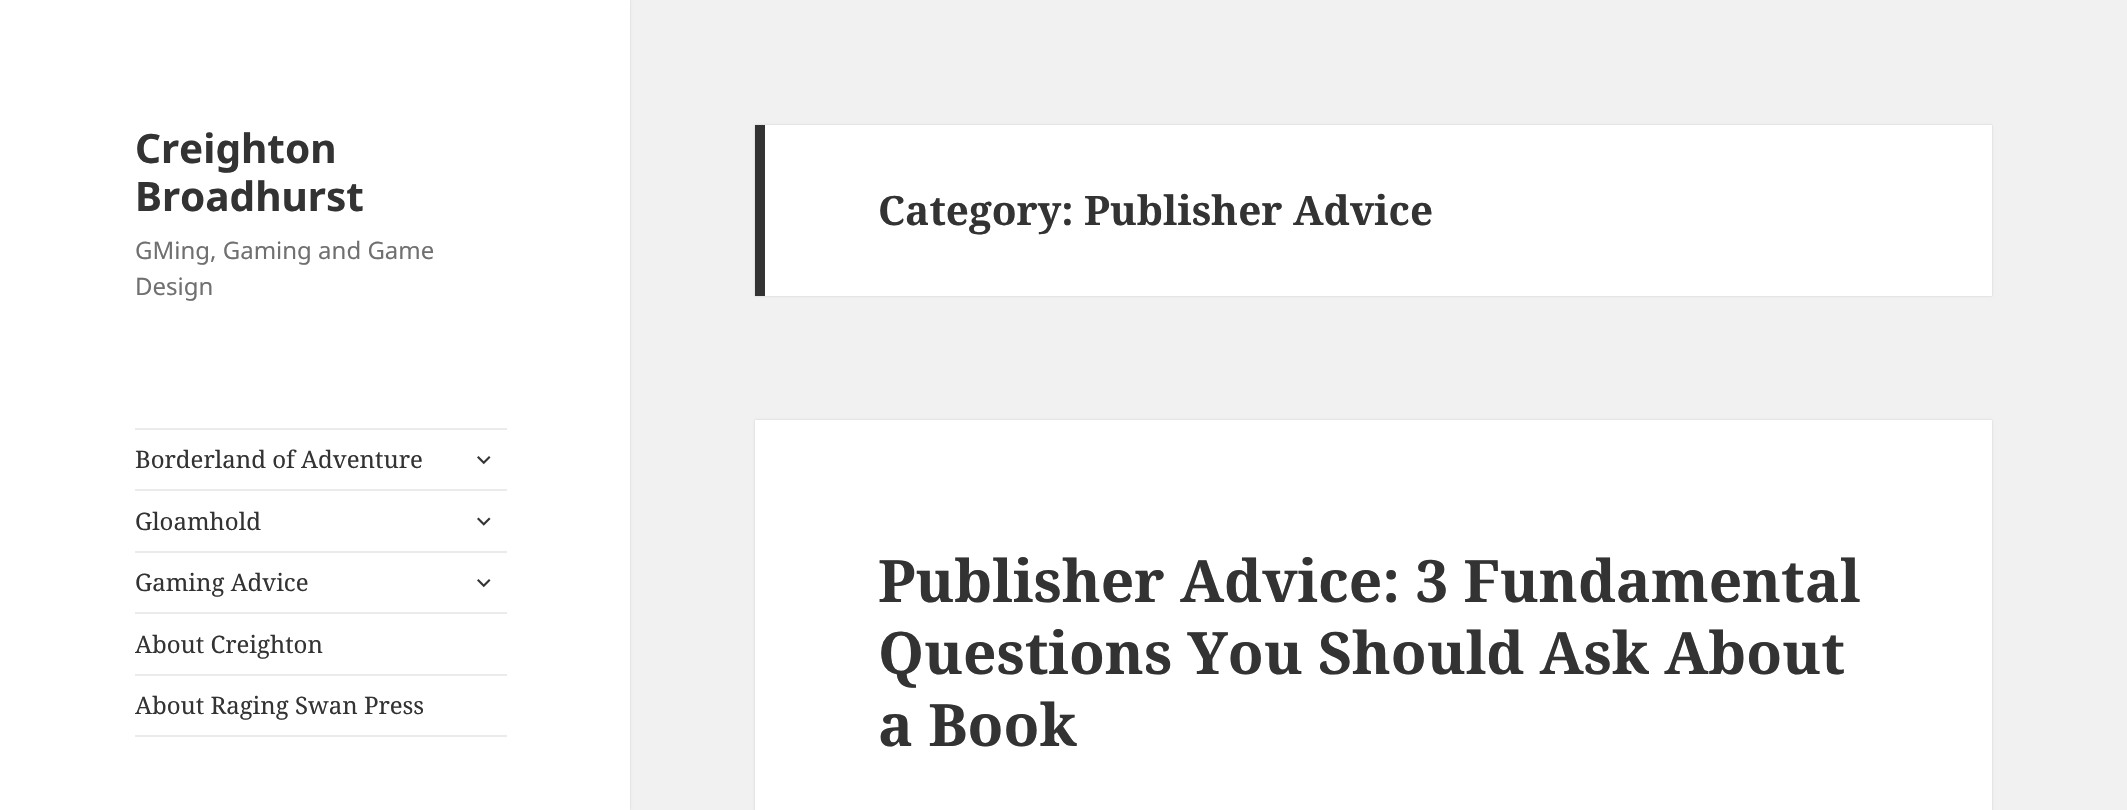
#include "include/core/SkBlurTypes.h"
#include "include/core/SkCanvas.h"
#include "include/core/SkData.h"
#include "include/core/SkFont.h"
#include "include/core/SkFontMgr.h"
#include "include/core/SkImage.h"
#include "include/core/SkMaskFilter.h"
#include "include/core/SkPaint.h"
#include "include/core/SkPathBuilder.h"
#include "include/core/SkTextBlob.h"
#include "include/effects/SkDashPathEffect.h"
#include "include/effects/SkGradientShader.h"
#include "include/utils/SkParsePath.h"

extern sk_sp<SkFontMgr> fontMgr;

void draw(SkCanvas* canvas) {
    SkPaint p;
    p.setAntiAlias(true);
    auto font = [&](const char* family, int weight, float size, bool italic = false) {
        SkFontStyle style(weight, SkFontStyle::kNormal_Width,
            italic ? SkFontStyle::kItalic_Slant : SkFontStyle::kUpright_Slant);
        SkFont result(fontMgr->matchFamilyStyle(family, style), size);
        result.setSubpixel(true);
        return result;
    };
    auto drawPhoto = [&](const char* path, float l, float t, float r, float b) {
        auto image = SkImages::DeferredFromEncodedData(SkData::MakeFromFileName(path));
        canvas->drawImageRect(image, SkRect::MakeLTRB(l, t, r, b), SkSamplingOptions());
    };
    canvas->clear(0xFFF1F1F1);
    p.setColor(0x26000000);
    p.setMaskFilter(SkMaskFilter::MakeBlur(kNormal_SkBlurStyle, 1));
    canvas->drawRect(SkRect::MakeLTRB(0, 0, 630, 810), p);
    p.setMaskFilter(nullptr);
    p.setColor(0xFFFFFFFF);
    canvas->drawRect(SkRect::MakeLTRB(0, 0, 630, 810), p);
    auto font1 = font("Noto Sans", 700, 40.5f);
    p.setColor(0xFF333333);
    canvas->drawString("Creighton", 135, 163, font1, p);
    canvas->drawString("Broadhurst", 135, 211, font1, p);
    auto font2 = font("Noto Sans", 400, 24);
    p.setColor(0xFF707070);
    canvas->drawString("GMing, Gaming and Game", 135, 259, font2, p);
    canvas->drawString("Design", 135, 295, font2, p);
    p.setColor(0xFFEBEBEB);
    canvas->drawRect(SkRect::MakeLTRB(135, 428, 507, 430), p);
    canvas->drawRect(SkRect::MakeLTRB(135, 735, 507, 737), p);
    auto font3 = font("Noto Serif", 400, 24);
    p.setColor(0xFF333333);
    canvas->drawString("Borderland of Adventure", 135, 468, font3, p);
    drawPhoto("media/1.png", 477, 456, 491, 465);
    p.setColor(0xFFEBEBEB);
    canvas->drawRect(SkRect::MakeLTRB(135, 489, 507, 491), p);
    p.setColor(0xFF333333);
    canvas->drawString("Gloamhold", 135, 530, font3, p);
    drawPhoto("media/2.png", 477, 517, 491, 526);
    p.setColor(0xFFEBEBEB);
    canvas->drawRect(SkRect::MakeLTRB(135, 551, 507, 553), p);
    p.setColor(0xFF333333);
    canvas->drawString("Gaming Advice", 135, 591, font3, p);
    drawPhoto("media/1.png", 477, 579, 491, 588);
    p.setColor(0xFFEBEBEB);
    canvas->drawRect(SkRect::MakeLTRB(135, 612, 507, 614), p);
    p.setColor(0xFF333333);
    canvas->drawString("About Creighton", 135, 653, font3, p);
    p.setColor(0xFFEBEBEB);
    canvas->drawRect(SkRect::MakeLTRB(135, 674, 507, 676), p);
    p.setColor(0xFF333333);
    canvas->drawString("About Raging Swan Press", 135, 714, font3, p);
    p.setColor(0x26000000);
    p.setMaskFilter(SkMaskFilter::MakeBlur(kNormal_SkBlurStyle, 1));
    canvas->drawRect(SkRect::MakeLTRB(755, 125, 1992, 296), p);
    p.setMaskFilter(nullptr);
    p.setColor(0xFFFFFFFF);
    canvas->drawRect(SkRect::MakeLTRB(765, 125, 1992, 296), p);
    p.setColor(0xFF333333);
    canvas->drawRect(SkRect::MakeLTRB(755, 125, 765, 296), p);
    auto font4 = font("Noto Serif", 700, 40.5f);
    canvas->drawString("Category: Publisher Advice", 878, 225, font4, p);
    p.setColor(0x26000000);
    p.setMaskFilter(SkMaskFilter::MakeBlur(kNormal_SkBlurStyle, 1));
    canvas->drawRect(SkRect::MakeLTRB(755, 420, 1992, 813), p);
    p.setMaskFilter(nullptr);
    p.setColor(0xFFFFFFFF);
    canvas->drawRect(SkRect::MakeLTRB(755, 420, 1992, 810), p);
    auto font5 = font("Noto Serif", 700, 58.5f);
    p.setColor(0xFF333333);
    {
        const struct { const char* s; float x, y; } items[] = {
            {"Publisher Advice: 3 Fundamental", 878, 602},
            {"Questions You Should Ask About", 878, 674},
            {"a Book", 878, 746},
        };
        for (auto [s, x, y] : items) {
            canvas->drawString(s, x, y, font5, p);
        }
    }
}
